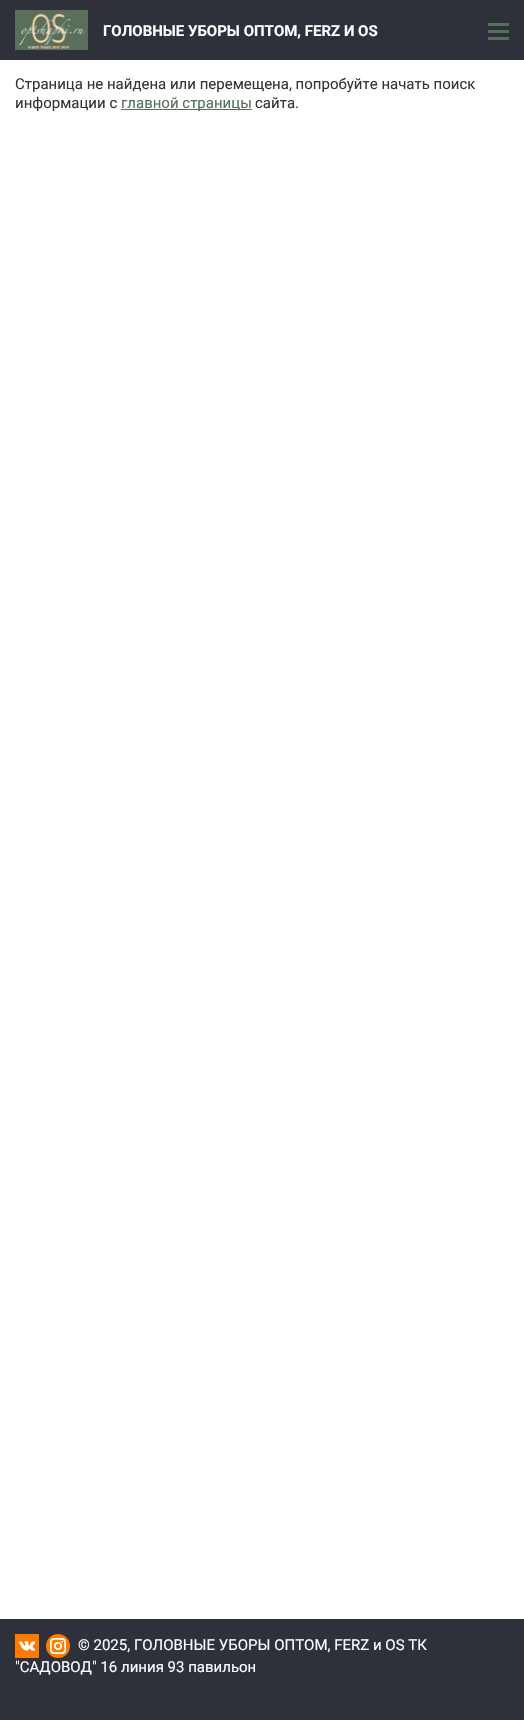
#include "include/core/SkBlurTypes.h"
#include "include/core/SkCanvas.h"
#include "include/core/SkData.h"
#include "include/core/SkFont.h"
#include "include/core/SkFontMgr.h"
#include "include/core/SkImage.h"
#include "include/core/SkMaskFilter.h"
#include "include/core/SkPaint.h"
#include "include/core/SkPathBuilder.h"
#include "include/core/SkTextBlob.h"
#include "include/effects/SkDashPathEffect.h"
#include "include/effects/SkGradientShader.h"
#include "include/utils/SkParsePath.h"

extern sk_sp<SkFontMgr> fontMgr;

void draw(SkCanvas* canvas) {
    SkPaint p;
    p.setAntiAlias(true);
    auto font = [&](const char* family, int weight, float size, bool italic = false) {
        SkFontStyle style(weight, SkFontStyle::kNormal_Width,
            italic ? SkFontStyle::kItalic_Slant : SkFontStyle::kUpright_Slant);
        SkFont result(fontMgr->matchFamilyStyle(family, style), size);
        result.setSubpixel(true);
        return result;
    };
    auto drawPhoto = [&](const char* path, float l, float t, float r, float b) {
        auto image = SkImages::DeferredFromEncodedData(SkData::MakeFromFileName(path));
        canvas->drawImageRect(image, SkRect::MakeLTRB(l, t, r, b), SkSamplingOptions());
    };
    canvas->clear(0xFFFFFFFF);
    p.setColor(0xFF2E313A);
    canvas->drawRect(SkRect::MakeLTRB(0, 0, 524, 60), p);
    drawPhoto("media/1.png", 15, 10, 88, 50);
    auto font1 = font("Roboto", 700, 15);
    p.setColor(0xFFFFFFFF);
    canvas->drawString("ГОЛОВНЫЕ УБОРЫ ОПТОМ, FERZ И OS", 103, 36, font1, p);
    {
        const struct { float l, t, r, b; SkColor color; } items[] = {
            {488, 23, 509, 26, 0xFF55705A},
            {488, 30, 509, 33, 0xFF55705A},
            {488, 37, 509, 40, 0xFF55705A},
        };
        for (auto [l, t, r, b, color] : items) {
            p.setColor(color);
            canvas->drawRect(SkRect::MakeLTRB(l, t, r, b), p);
        }
    }
    auto font2 = font("Roboto", 400, 15);
    p.setColor(0xFF353535);
    canvas->drawString("Страница не найдена или перемещена, попробуйте начать поиск", 15, 89, font2, p);
    canvas->drawString("информации с", 15, 108, font2, p);
    p.setColor(0xFF55705A);
    canvas->drawRect(SkRect::MakeLTRB(121, 109, 252, 110), p);
    canvas->drawString("главной страницы", 121, 108, font2, p);
    p.setColor(0xFF353535);
    canvas->drawString("сайта.", 255, 108, font2, p);
    p.setColor(0xFF2E313A);
    canvas->drawRect(SkRect::MakeLTRB(0, 1619, 524, 1720), p);
    drawPhoto("media/2.png", 15, 1634, 39, 1658);
    drawPhoto("media/3.png", 46, 1634, 70, 1658);
    p.setColor(0xFFFFFFFF);
    canvas->drawString("© 2025, ГОЛОВНЫЕ УБОРЫ ОПТОМ, FERZ и OS ТК", 78, 1650, font2, p);
    canvas->drawString("\"САДОВОД\" 16 линия 93 павильон", 15, 1672, font2, p);
}
